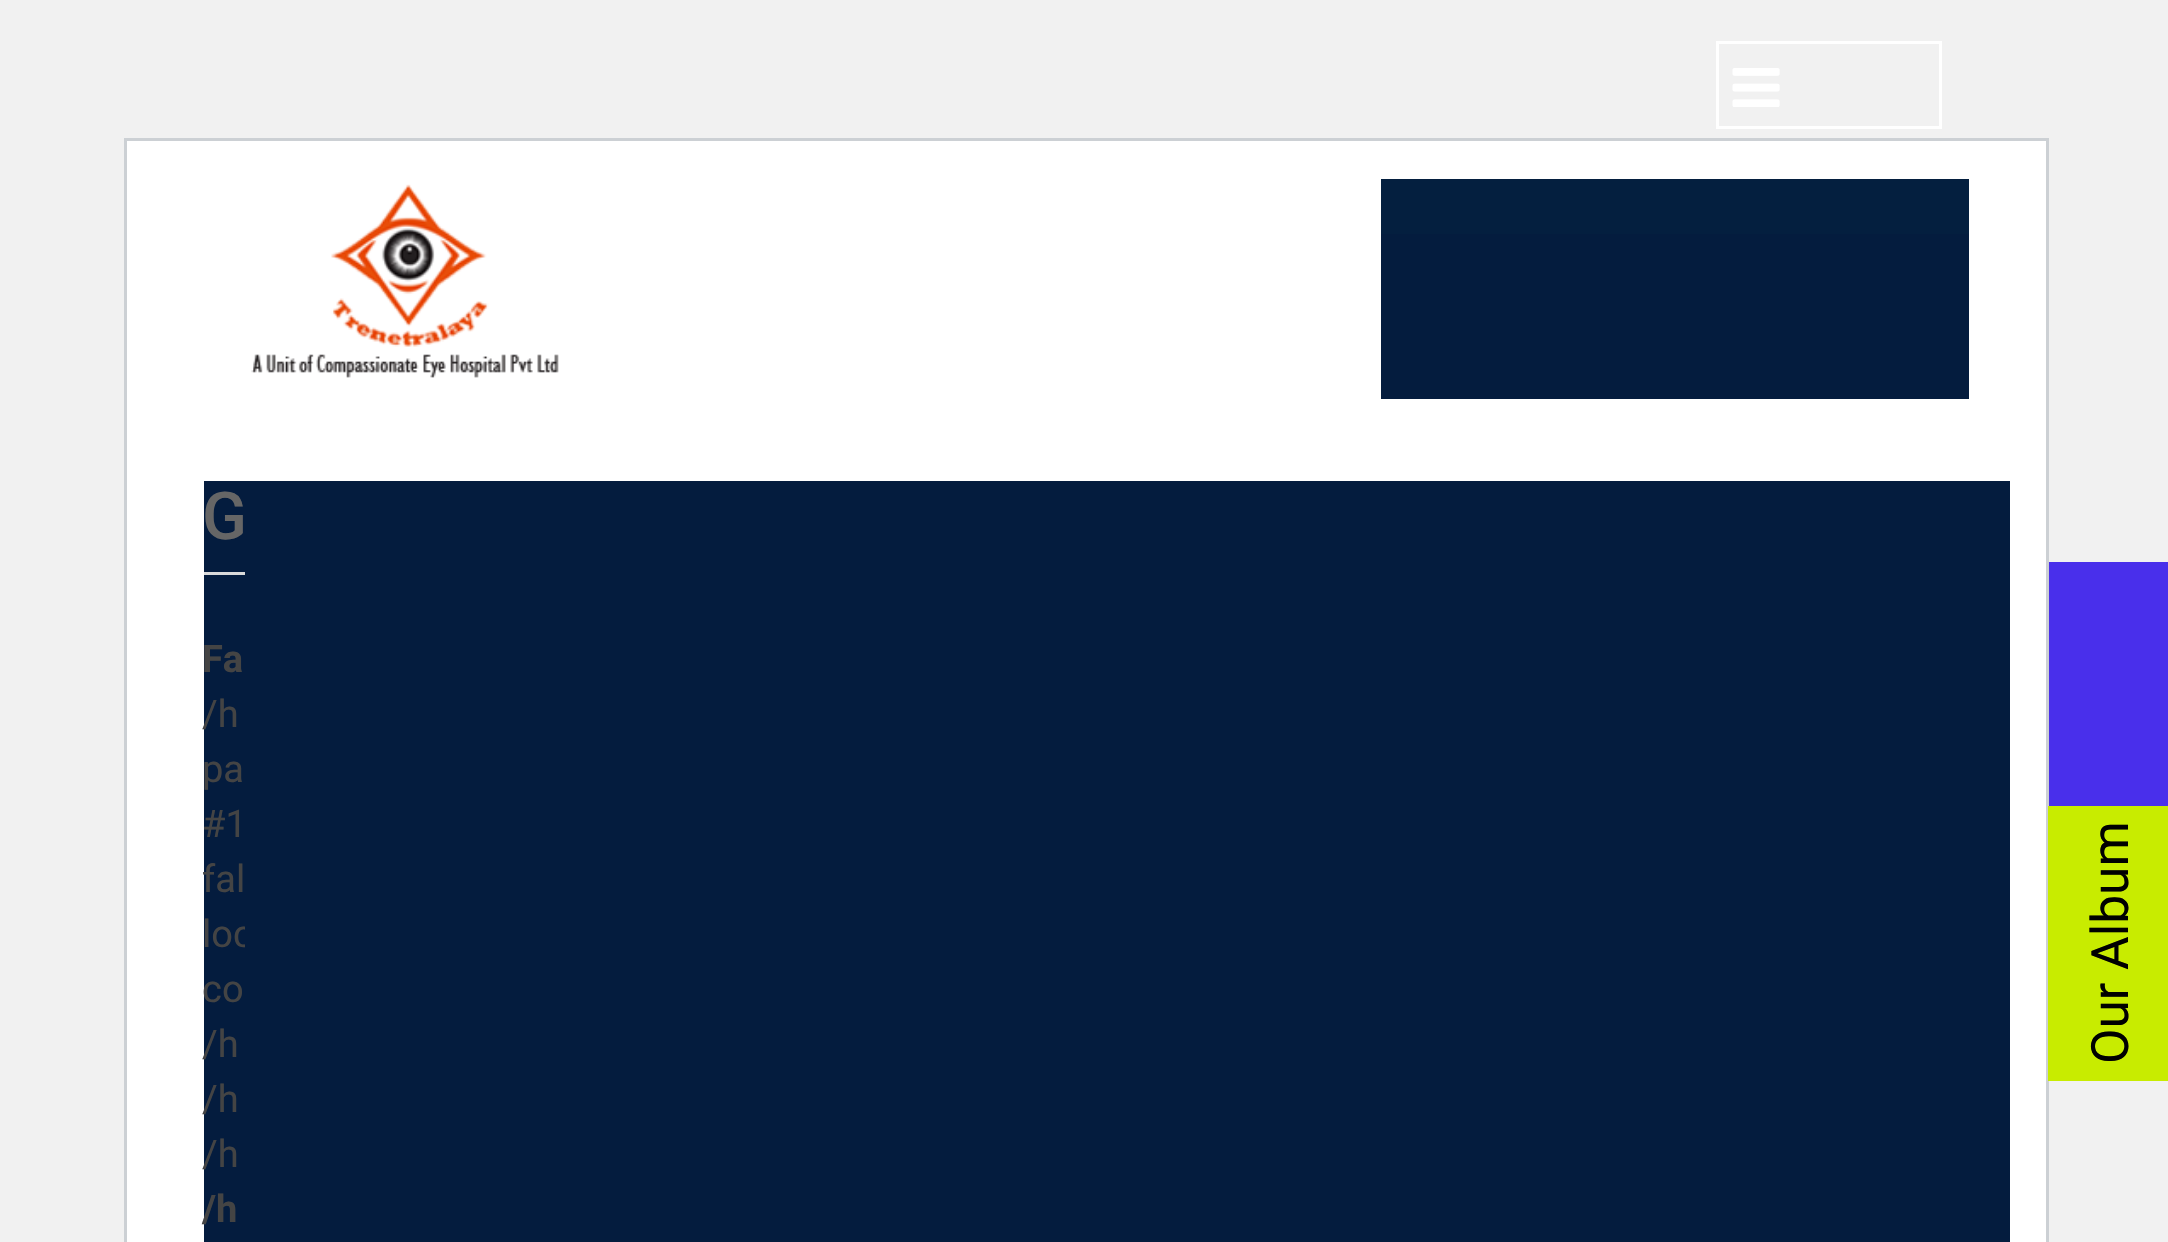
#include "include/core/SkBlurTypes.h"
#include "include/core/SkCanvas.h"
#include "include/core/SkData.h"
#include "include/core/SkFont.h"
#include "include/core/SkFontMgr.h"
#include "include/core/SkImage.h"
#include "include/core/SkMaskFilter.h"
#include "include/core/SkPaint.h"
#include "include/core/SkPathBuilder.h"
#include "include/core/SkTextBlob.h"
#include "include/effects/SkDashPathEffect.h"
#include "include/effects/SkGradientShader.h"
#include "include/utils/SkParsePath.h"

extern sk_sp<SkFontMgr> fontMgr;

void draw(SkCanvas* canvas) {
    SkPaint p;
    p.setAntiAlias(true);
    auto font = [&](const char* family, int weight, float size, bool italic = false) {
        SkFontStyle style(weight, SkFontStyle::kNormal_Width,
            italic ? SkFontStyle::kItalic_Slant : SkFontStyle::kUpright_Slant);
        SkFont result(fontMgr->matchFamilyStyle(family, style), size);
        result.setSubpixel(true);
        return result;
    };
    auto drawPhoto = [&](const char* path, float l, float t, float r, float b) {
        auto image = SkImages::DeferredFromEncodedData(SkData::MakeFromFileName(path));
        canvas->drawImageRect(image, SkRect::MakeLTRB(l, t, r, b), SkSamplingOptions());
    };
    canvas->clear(0xFFF1F1F1);
    p.setColor(0xFFFFFFFF);
    canvas->drawRect(SkRect::MakeLTRB(125.5f, 139.5f, 2047.5f, 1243.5f), p);
    p.setStyle(SkPaint::kStroke_Style);
    p.setStrokeWidth(3);
    p.setColor(0xFFCCD0D4);
    canvas->drawRect(SkRect::MakeLTRB(125.5f, 139.5f, 2047.5f, 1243.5f), p);
    p.setColor(0xFFFFFFFF);
    canvas->drawRect(SkRect::MakeLTRB(1717.5f, 42.5f, 1940.5f, 127.5f), p);
    drawPhoto("media/1.png", 1732, 68, 1780, 107);
    p.setStyle(SkPaint::kFill_Style);
    p.setColor(0xFF041F3F);
    canvas->drawRect(SkRect::MakeLTRB(1381, 179, 1969, 234), p);
    drawPhoto("media/2.png", 251, 184, 559, 378);
    {
        const struct { float l, t, r, b; SkColor color; } items[] = {
            {1381, 234, 1969, 399, 0xFF041C3E},
            {204, 481, 245, 1242, 0xFF041C3E},
            {204, 572, 245, 575, 0xFFDADADA},
        };
        for (auto [l, t, r, b, color] : items) {
            p.setColor(color);
            canvas->drawRect(SkRect::MakeLTRB(l, t, r, b), p);
        }
    }
    auto font1 = font("Roboto", 500, 66);
    p.setColor(0xFF666666);
    canvas->drawString("G", 202, 539, font1, p);
    auto font2 = font("Roboto", 400, 38);
    p.setColor(0xFF444444);
    canvas->drawString("loc", 202, 947, font2, p);
    p.setColor(0xFF041C3E);
    canvas->drawRect(SkRect::MakeLTRB(245, 481, 2010, 1242), p);
    auto font3 = font("Roboto", 700, 38);
    p.setColor(0xFF444444);
    canvas->drawString("Fa", 202, 672, font3, p);
    {
        const struct { const char* s; float x, y; } items[] = {
            {"/h", 202, 727},
            {"pa", 202, 782},
            {"#1", 202, 837},
            {"fal", 202, 892},
            {"co", 202, 1002},
            {"/h", 202, 1057},
            {"/h", 202, 1112},
            {"/h", 202, 1167},
        };
        for (auto [s, x, y] : items) {
            canvas->drawString(s, x, y, font2, p);
        }
    }
    canvas->drawString("/h", 202, 1222, font3, p);
    p.setColor(0xFF492FEB);
    canvas->drawRect(SkRect::MakeLTRB(2049, 562, 2168, 806), p);
    p.setColor(0xFFC8EC00);
    canvas->drawRect(SkRect::MakeLTRB(2048, 806, 2168, 1081), p);
    auto font4 = font("Roboto", 400, 51.5f);
    p.setColor(0xFF000000);
    canvas->save();
    canvas->rotate(-90, 2128, 1064);
    canvas->drawString("Our Album", 2128, 1064, font4, p);
    canvas->restore();
}
